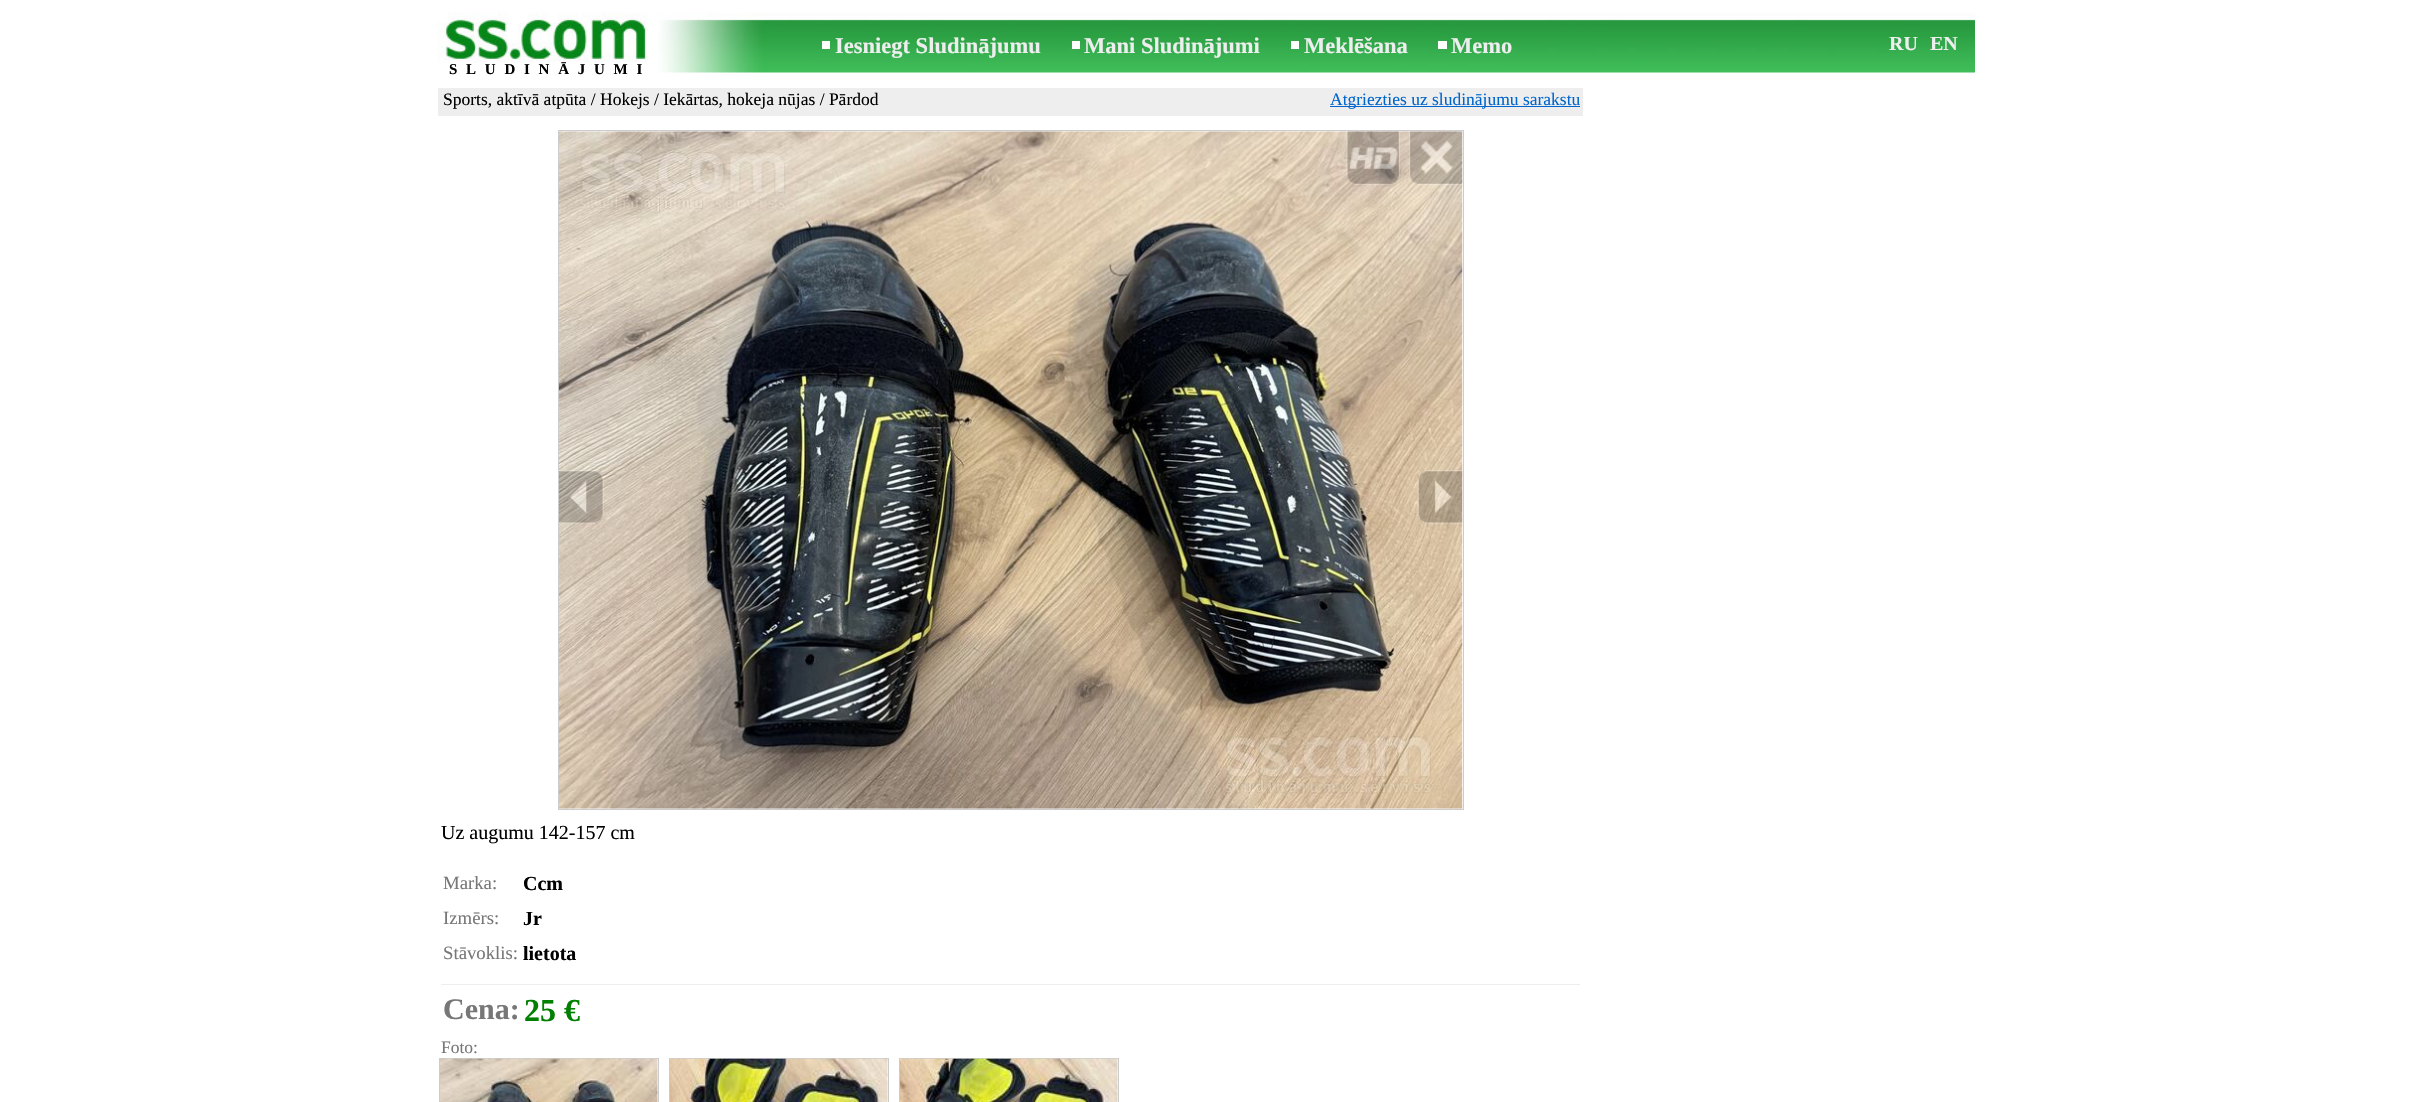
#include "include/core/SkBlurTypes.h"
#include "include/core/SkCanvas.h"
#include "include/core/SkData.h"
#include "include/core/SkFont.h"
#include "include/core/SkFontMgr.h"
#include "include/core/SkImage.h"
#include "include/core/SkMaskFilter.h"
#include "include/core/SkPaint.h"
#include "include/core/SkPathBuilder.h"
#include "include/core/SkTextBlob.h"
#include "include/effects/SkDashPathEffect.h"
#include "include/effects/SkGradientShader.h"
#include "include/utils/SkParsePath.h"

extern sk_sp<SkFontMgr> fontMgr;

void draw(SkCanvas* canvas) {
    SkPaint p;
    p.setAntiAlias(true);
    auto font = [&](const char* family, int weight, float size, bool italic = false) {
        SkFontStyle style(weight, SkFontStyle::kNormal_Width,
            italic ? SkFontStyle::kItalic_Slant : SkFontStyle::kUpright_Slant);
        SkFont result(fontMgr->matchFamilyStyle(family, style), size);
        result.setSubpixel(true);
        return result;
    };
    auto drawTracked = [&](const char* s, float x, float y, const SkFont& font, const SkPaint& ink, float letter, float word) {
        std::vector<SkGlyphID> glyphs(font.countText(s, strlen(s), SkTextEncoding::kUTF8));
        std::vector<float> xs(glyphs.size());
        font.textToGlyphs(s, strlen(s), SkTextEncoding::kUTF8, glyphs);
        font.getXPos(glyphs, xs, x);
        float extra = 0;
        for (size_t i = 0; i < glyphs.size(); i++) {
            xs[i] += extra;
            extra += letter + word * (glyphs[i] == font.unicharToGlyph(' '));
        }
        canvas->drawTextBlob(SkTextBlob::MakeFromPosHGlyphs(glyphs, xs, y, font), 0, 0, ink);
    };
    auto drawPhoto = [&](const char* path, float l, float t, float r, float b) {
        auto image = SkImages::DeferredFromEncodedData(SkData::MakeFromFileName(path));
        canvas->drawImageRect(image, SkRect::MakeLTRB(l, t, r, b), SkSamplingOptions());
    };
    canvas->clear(0xFFFFFFFF);
    drawPhoto("media/1.png", 437, 12, 1975, 73);
    auto font1 = font("Liberation Serif", 700, 22.5f);
    p.setColor(0xFFEEEEEE);
    canvas->drawString("Iesniegt Sludinājumu", 835, 53, font1, p);
    p.setColor(0xFFFFFFFF);
    canvas->drawRect(SkRect::MakeLTRB(822, 41, 830, 49), p);
    p.setColor(0xFFEEEEEE);
    canvas->drawString("Mani Sludinājumi", 1084, 53, font1, p);
    p.setColor(0xFFFFFFFF);
    canvas->drawRect(SkRect::MakeLTRB(1072, 41, 1080, 49), p);
    p.setColor(0xFFEEEEEE);
    canvas->drawString("Meklēšana", 1304, 53, font1, p);
    p.setColor(0xFFFFFFFF);
    canvas->drawRect(SkRect::MakeLTRB(1291, 41, 1299, 49), p);
    p.setColor(0xFFEEEEEE);
    canvas->drawString("Memo", 1451, 53, font1, p);
    p.setColor(0xFFFFFFFF);
    canvas->drawRect(SkRect::MakeLTRB(1438, 41, 1447, 49), p);
    auto font2 = font("Liberation Serif", 700, 20);
    p.setColor(0xFFEEEEEE);
    canvas->drawString("RU", 1889, 50, font2, p);
    canvas->drawString("EN", 1930, 50, font2, p);
    auto font3 = font("Liberation Serif", 700, 15);
    p.setColor(0xFF000000);
    drawTracked("SLUDINĀJUMI", 449, 74, font3, p, 8.75f, 0);
    p.setColor(0xFFEEEEEE);
    canvas->drawRect(SkRect::MakeLTRB(438, 88, 1583, 116), p);
    auto font4 = font("Liberation Serif", 400, 17.5f);
    p.setColor(0xFF000000);
    canvas->drawString("Sports, aktīvā atpūta / Hokejs / Iekārtas, hokeja nūjas / Pārdod", 443, 105, font4, p);
    p.setColor(0xFF0066CC);
    canvas->drawRect(SkRect::MakeLTRB(1330, 106, 1580, 107), p);
    canvas->drawString("Atgriezties uz sludinājumu sarakstu", 1330, 105, font4, p);
    p.setStyle(SkPaint::kStroke_Style);
    p.setStrokeWidth(1);
    p.setColor(0xFFCCCCCC);
    canvas->drawRect(SkRect::MakeLTRB(558.5f, 130.5f, 1463.5f, 809.5f), p);
    drawPhoto("media/2.png", 558, 131, 1463, 809);
    drawPhoto("media/3.png", 1346, 131, 1400, 185);
    drawPhoto("media/4.png", 1409, 131, 1463, 185);
    drawPhoto("media/5.png", 559, 470, 604, 524);
    drawPhoto("media/6.png", 1417, 470, 1463, 524);
    auto font5 = font("Liberation Serif", 400, 20);
    p.setStyle(SkPaint::kFill_Style);
    p.setColor(0xFF000000);
    canvas->drawString("Uz augumu 142-157 cm", 441, 839, font5, p);
    auto font6 = font("Liberation Serif", 400, 18.75f);
    p.setColor(0xFF777777);
    canvas->drawString("Marka:", 443, 889, font6, p);
    p.setColor(0xFF000000);
    canvas->drawString("Ccm", 523, 890, font2, p);
    p.setColor(0xFF777777);
    canvas->drawString("Izmērs:", 443, 924, font6, p);
    p.setColor(0xFF000000);
    canvas->drawString("Jr", 523, 925, font2, p);
    p.setColor(0xFF777777);
    canvas->drawString("Stāvoklis:", 443, 959, font6, p);
    p.setColor(0xFF000000);
    canvas->drawString("lietota", 523, 960, font2, p);
    p.setColor(0xFFEEEEEE);
    canvas->drawRect(SkRect::MakeLTRB(441, 984, 1580, 985), p);
    auto font7 = font("Liberation Serif", 700, 30);
    p.setColor(0xFF777777);
    canvas->drawString("Cena:", 443, 1019, font7, p);
    auto font8 = font("Liberation Serif", 700, 32);
    p.setColor(0xFF008000);
    canvas->drawString("25 €", 524, 1021, font8, p);
    p.setColor(0xFF777777);
    canvas->drawString("Foto:", 441, 1053, font4, p);
    p.setStyle(SkPaint::kStroke_Style);
    p.setColor(0xFFCCCCCC);
    canvas->drawRect(SkRect::MakeLTRB(439.5f, 1058.5f, 658.5f, 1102.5f), p);
    drawPhoto("media/7.png", 440, 1058, 658, 1102);
    canvas->drawRect(SkRect::MakeLTRB(669.5f, 1058.5f, 888.5f, 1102.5f), p);
    drawPhoto("media/8.png", 670, 1058, 888, 1102);
    canvas->drawRect(SkRect::MakeLTRB(899.5f, 1058.5f, 1118.5f, 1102.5f), p);
    drawPhoto("media/9.png", 900, 1058, 1118, 1102);
}
